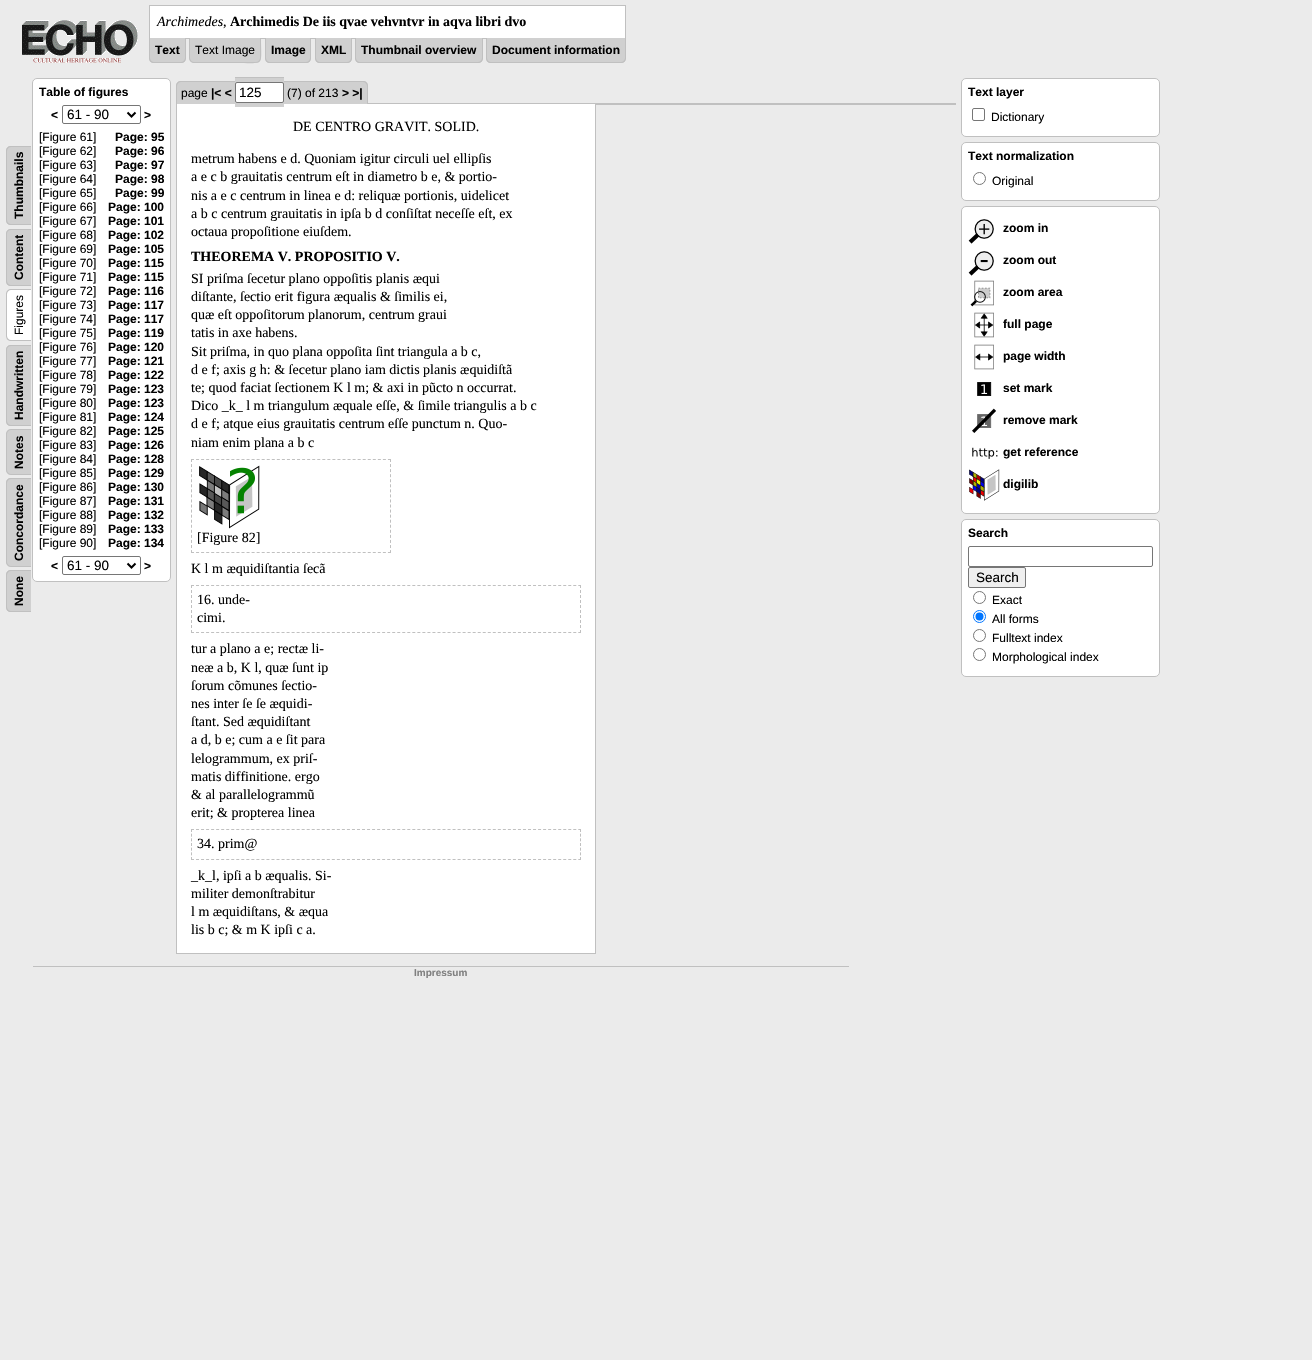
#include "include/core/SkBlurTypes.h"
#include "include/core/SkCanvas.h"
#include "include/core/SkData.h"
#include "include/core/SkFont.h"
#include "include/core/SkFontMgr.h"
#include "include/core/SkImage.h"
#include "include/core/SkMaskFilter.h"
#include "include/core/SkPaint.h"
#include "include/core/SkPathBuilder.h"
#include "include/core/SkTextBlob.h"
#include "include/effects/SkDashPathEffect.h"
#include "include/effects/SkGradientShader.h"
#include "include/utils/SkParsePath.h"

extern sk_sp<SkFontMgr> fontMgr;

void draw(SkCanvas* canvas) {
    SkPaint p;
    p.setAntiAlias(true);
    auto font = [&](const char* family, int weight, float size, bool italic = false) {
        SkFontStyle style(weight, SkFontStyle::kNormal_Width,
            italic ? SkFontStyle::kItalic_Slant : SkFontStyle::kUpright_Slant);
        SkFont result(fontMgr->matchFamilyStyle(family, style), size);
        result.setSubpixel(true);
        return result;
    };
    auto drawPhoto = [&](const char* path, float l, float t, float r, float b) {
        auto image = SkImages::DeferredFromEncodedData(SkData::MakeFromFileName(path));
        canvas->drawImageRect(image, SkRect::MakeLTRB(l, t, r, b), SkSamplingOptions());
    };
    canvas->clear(0xFFEBEBEB);
    drawPhoto("media/1.png", 22, 20, 138, 63);
    p.setColor(0xFFFFFFFF);
    canvas->drawRect(SkRect::MakeLTRB(149.5f, 5.5f, 625.5f, 38.5f), p);
    p.setStyle(SkPaint::kStroke_Style);
    p.setStrokeWidth(1);
    p.setColor(0xFFC0C0C0);
    canvas->drawRect(SkRect::MakeLTRB(149.5f, 5.5f, 625.5f, 38.5f), p);
    auto font1 = font("Liberation Serif", 400, 14, true);
    p.setStyle(SkPaint::kFill_Style);
    p.setColor(0xFF000000);
    canvas->drawString("Archimedes", 157, 26, font1, p);
    auto font2 = font("Liberation Serif", 400, 14);
    canvas->drawString(",", 223, 26, font2, p);
    auto font3 = font("Liberation Serif", 700, 14);
    canvas->drawString("Archimedis De iis qvae vehvntvr in aqva libri dvo", 230, 26, font3, p);
    p.setColor(0xFFD0D0D0);
    canvas->drawPath(SkPathBuilder().moveTo(149, 38).lineTo(186, 38).lineTo(186, 58).cubicTo(186, 61, 184, 63, 181, 63).lineTo(154, 63).cubicTo(151, 63, 149, 61, 149, 58).close().detach(), p);
    p.setColor(0xFFC0C0C0);
    canvas->drawPath(SkPathBuilder(SkPathFillType::kEvenOdd).moveTo(149, 38).lineTo(186, 38).lineTo(186, 58).cubicTo(186, 61, 184, 63, 181, 63).lineTo(154, 63).cubicTo(151, 63, 149, 61, 149, 58).close().moveTo(150, 38).lineTo(185, 38).lineTo(185, 58).cubicTo(185, 60, 183, 62, 181, 62).lineTo(154, 62).cubicTo(152, 62, 150, 60, 150, 58).close().detach(), p);
    auto font4 = font("Liberation Sans", 700, 12);
    p.setColor(0xFF000000);
    canvas->drawString("Text", 155, 54, font4, p);
    p.setColor(0xFFD0D0D0);
    canvas->drawPath(SkPathBuilder().moveTo(189, 38).lineTo(261, 38).lineTo(261, 58).cubicTo(261, 61, 259, 63, 256, 63).lineTo(194, 63).cubicTo(191, 63, 189, 61, 189, 58).close().detach(), p);
    p.setColor(0xFFC0C0C0);
    canvas->drawPath(SkPathBuilder(SkPathFillType::kEvenOdd).moveTo(189, 38).lineTo(261, 38).cubicTo(261, 67, 266, 63, 235, 63).lineTo(193, 63).cubicTo(191, 62, 189, 60, 189, 58).close().moveTo(190, 38).lineTo(260, 38).lineTo(260, 58).cubicTo(260, 60, 258, 62, 256, 62).lineTo(194, 62).cubicTo(192, 62, 190, 60, 190, 58).close().detach(), p);
    auto font5 = font("Liberation Sans", 400, 12);
    p.setColor(0xFF000000);
    canvas->drawString("Text Image", 195, 54, font5, p);
    p.setColor(0xFFD0D0D0);
    canvas->drawPath(SkPathBuilder().moveTo(265, 38).lineTo(311, 38).lineTo(311, 58).cubicTo(311, 61, 309, 63, 306, 63).lineTo(270, 63).cubicTo(267, 63, 265, 61, 265, 58).close().detach(), p);
    p.setColor(0xFFC0C0C0);
    canvas->drawPath(SkPathBuilder(SkPathFillType::kEvenOdd).moveTo(265, 38).lineTo(311, 38).lineTo(311, 58).cubicTo(311, 61, 309, 63, 306, 63).lineTo(270, 63).cubicTo(267, 63, 265, 61, 265, 58).close().moveTo(266, 38).lineTo(310, 38).lineTo(310, 58).cubicTo(310, 60, 308, 62, 306, 62).lineTo(270, 62).cubicTo(268, 62, 266, 60, 266, 58).close().detach(), p);
    p.setColor(0xFF000000);
    canvas->drawString("Image", 271, 54, font4, p);
    p.setColor(0xFFD0D0D0);
    canvas->drawPath(SkPathBuilder().moveTo(315, 38).lineTo(352, 38).lineTo(352, 58).cubicTo(352, 61, 350, 63, 347, 63).lineTo(320, 63).cubicTo(317, 63, 315, 61, 315, 58).close().detach(), p);
    p.setColor(0xFFC0C0C0);
    canvas->drawPath(SkPathBuilder(SkPathFillType::kEvenOdd).moveTo(315, 38).lineTo(352, 38).lineTo(352, 58).cubicTo(352, 61, 350, 63, 347, 63).lineTo(320, 63).cubicTo(317, 63, 315, 61, 315, 58).close().moveTo(316, 38).lineTo(351, 38).lineTo(351, 58).cubicTo(351, 60, 349, 62, 347, 62).lineTo(320, 62).cubicTo(318, 62, 316, 60, 316, 58).close().detach(), p);
    p.setColor(0xFF000000);
    canvas->drawString("XML", 321, 54, font4, p);
    p.setColor(0xFFD0D0D0);
    canvas->drawPath(SkPathBuilder().moveTo(355, 38).lineTo(483, 38).lineTo(483, 58).cubicTo(483, 61, 481, 63, 478, 63).lineTo(360, 63).cubicTo(357, 63, 355, 61, 355, 58).close().detach(), p);
    p.setColor(0xFFC0C0C0);
    canvas->drawPath(SkPathBuilder(SkPathFillType::kEvenOdd).moveTo(355, 38).lineTo(483, 38).lineTo(483, 58).cubicTo(483, 61, 481, 63, 478, 63).lineTo(360, 63).cubicTo(357, 63, 355, 61, 355, 58).close().moveTo(356, 38).lineTo(482, 38).lineTo(482, 58).cubicTo(482, 60, 480, 62, 478, 62).lineTo(360, 62).cubicTo(358, 62, 356, 60, 356, 58).close().detach(), p);
    p.setColor(0xFF000000);
    canvas->drawString("Thumbnail overview", 361, 54, font4, p);
    p.setColor(0xFFD0D0D0);
    canvas->drawPath(SkPathBuilder().moveTo(486, 38).lineTo(626, 38).lineTo(626, 58).cubicTo(626, 61, 624, 63, 621, 63).lineTo(491, 63).cubicTo(488, 63, 486, 61, 486, 58).close().detach(), p);
    p.setColor(0xFFC0C0C0);
    canvas->drawPath(SkPathBuilder(SkPathFillType::kEvenOdd).moveTo(486, 38).lineTo(626, 38).lineTo(626, 58).cubicTo(626, 61, 624, 63, 621, 63).lineTo(491, 63).cubicTo(488, 63, 486, 61, 486, 58).close().moveTo(487, 38).lineTo(625, 38).lineTo(625, 58).cubicTo(625, 60, 623, 62, 621, 62).lineTo(491, 62).cubicTo(489, 62, 487, 60, 487, 58).close().detach(), p);
    p.setColor(0xFF000000);
    canvas->drawString("Document information", 492, 54, font4, p);
    p.setColor(0xFFD0D0D0);
    canvas->drawPath(SkPathBuilder().moveTo(6, 220).lineTo(6, 151).cubicTo(6, 148, 8, 146, 11, 146).lineTo(31, 146).lineTo(31, 225).lineTo(11, 225).cubicTo(8, 225, 6, 223, 6, 220).close().detach(), p);
    p.setColor(0xFFC0C0C0);
    canvas->drawPath(SkPathBuilder(SkPathFillType::kEvenOdd).moveTo(6, 220).lineTo(6, 151).cubicTo(6, 148, 8, 146, 11, 146).lineTo(31, 146).lineTo(31, 225).lineTo(11, 225).cubicTo(8, 225, 6, 223, 6, 220).close().moveTo(7, 220).lineTo(7, 151).cubicTo(7, 149, 9, 147, 11, 147).lineTo(31, 147).lineTo(31, 224).lineTo(11, 224).cubicTo(9, 224, 7, 222, 7, 220).close().detach(), p);
    p.setColor(0xFF000000);
    canvas->save();
    canvas->rotate(-90, 23, 219);
    canvas->drawString("Thumbnails", 23, 219, font4, p);
    canvas->restore();
    p.setColor(0xFFD0D0D0);
    canvas->drawPath(SkPathBuilder().moveTo(6, 281).lineTo(6, 234).cubicTo(6, 231, 8, 229, 11, 229).lineTo(31, 229).lineTo(31, 286).lineTo(11, 286).cubicTo(8, 286, 6, 284, 6, 281).close().detach(), p);
    p.setColor(0xFFC0C0C0);
    canvas->drawPath(SkPathBuilder(SkPathFillType::kEvenOdd).moveTo(6, 281).lineTo(6, 234).cubicTo(6, 231, 8, 229, 11, 229).lineTo(31, 229).lineTo(31, 286).lineTo(11, 286).cubicTo(8, 286, 6, 284, 6, 281).close().moveTo(7, 281).lineTo(7, 234).cubicTo(7, 231, 9, 230, 11, 230).lineTo(31, 230).lineTo(31, 285).lineTo(11, 285).cubicTo(9, 285, 7, 283, 7, 281).close().detach(), p);
    p.setColor(0xFF000000);
    canvas->save();
    canvas->rotate(-90, 23, 280);
    canvas->drawString("Content", 23, 280, font4, p);
    canvas->restore();
    p.setColor(0xFFFFFFFF);
    canvas->drawPath(SkPathBuilder().moveTo(6, 336).lineTo(6, 294).cubicTo(6, 291, 8, 289, 11, 289).lineTo(31, 289).lineTo(31, 341).lineTo(11, 341).cubicTo(8, 341, 6, 339, 6, 336).close().detach(), p);
    p.setColor(0xFFC0C0C0);
    canvas->drawPath(SkPathBuilder(SkPathFillType::kEvenOdd).moveTo(6, 336).lineTo(6, 294).cubicTo(6, 291, 8, 289, 11, 289).lineTo(31, 289).lineTo(31, 341).lineTo(11, 341).cubicTo(8, 341, 6, 339, 6, 336).close().moveTo(7, 336).lineTo(7, 294).cubicTo(7, 292, 9, 290, 11, 290).lineTo(31, 290).lineTo(31, 340).lineTo(11, 340).cubicTo(9, 340, 7, 338, 7, 336).close().detach(), p);
    p.setColor(0xFF000000);
    canvas->save();
    canvas->rotate(-90, 23, 335);
    canvas->drawString("Figures", 23, 335, font5, p);
    canvas->restore();
    p.setColor(0xFFD0D0D0);
    canvas->drawPath(SkPathBuilder().moveTo(6, 421).lineTo(6, 350).cubicTo(6, 347, 8, 345, 11, 345).lineTo(31, 345).lineTo(31, 426).lineTo(11, 426).cubicTo(8, 426, 6, 424, 6, 421).close().detach(), p);
    p.setColor(0xFFC0C0C0);
    canvas->drawPath(SkPathBuilder(SkPathFillType::kEvenOdd).moveTo(6, 421).lineTo(6, 350).cubicTo(6, 347, 8, 345, 11, 345).lineTo(31, 345).lineTo(31, 426).lineTo(11, 426).cubicTo(8, 426, 6, 424, 6, 421).close().moveTo(7, 421).lineTo(7, 350).cubicTo(7, 347, 9, 346, 11, 346).lineTo(31, 346).lineTo(31, 425).lineTo(11, 425).cubicTo(9, 425, 7, 423, 7, 421).close().detach(), p);
    p.setColor(0xFF000000);
    canvas->save();
    canvas->rotate(-90, 23, 420);
    canvas->drawString("Handwritten", 23, 420, font4, p);
    canvas->restore();
    p.setColor(0xFFD0D0D0);
    canvas->drawPath(SkPathBuilder().moveTo(6, 470).lineTo(6, 434).cubicTo(6, 432, 8, 429, 11, 429).lineTo(31, 429).lineTo(31, 475).lineTo(11, 475).cubicTo(8, 475, 6, 472, 6, 470).close().detach(), p);
    p.setColor(0xFFC0C0C0);
    canvas->drawPath(SkPathBuilder(SkPathFillType::kEvenOdd).moveTo(6, 470).lineTo(6, 434).cubicTo(6, 432, 8, 429, 11, 429).lineTo(31, 429).lineTo(31, 475).lineTo(11, 475).cubicTo(8, 475, 6, 472, 6, 470).close().moveTo(7, 470).lineTo(7, 434).cubicTo(7, 432, 9, 430, 11, 430).lineTo(31, 430).lineTo(31, 474).lineTo(11, 474).cubicTo(9, 474, 7, 472, 7, 470).close().detach(), p);
    p.setColor(0xFF000000);
    canvas->save();
    canvas->rotate(-90, 23, 469);
    canvas->drawString("Notes", 23, 469, font4, p);
    canvas->restore();
    p.setColor(0xFFD0D0D0);
    canvas->drawPath(SkPathBuilder().moveTo(6, 562).lineTo(6, 483).cubicTo(6, 480, 8, 478, 11, 478).lineTo(31, 478).lineTo(31, 567).lineTo(11, 567).cubicTo(8, 567, 6, 564, 6, 562).close().detach(), p);
    p.setColor(0xFFC0C0C0);
    canvas->drawPath(SkPathBuilder(SkPathFillType::kEvenOdd).moveTo(6, 562).lineTo(6, 483).cubicTo(6, 480, 8, 478, 11, 478).lineTo(31, 478).lineTo(31, 567).lineTo(11, 567).cubicTo(8, 567, 6, 564, 6, 562).close().moveTo(7, 562).lineTo(7, 483).cubicTo(7, 481, 9, 479, 11, 479).lineTo(31, 479).lineTo(31, 566).lineTo(11, 566).cubicTo(9, 566, 7, 564, 7, 562).close().detach(), p);
    p.setColor(0xFF000000);
    canvas->save();
    canvas->rotate(-90, 23, 561);
    canvas->drawString("Concordance", 23, 561, font4, p);
    canvas->restore();
    p.setColor(0xFFD0D0D0);
    canvas->drawPath(SkPathBuilder().moveTo(6, 607).lineTo(6, 575).cubicTo(6, 572, 8, 570, 11, 570).lineTo(31, 570).lineTo(31, 612).lineTo(11, 612).cubicTo(8, 612, 6, 610, 6, 607).close().detach(), p);
    p.setColor(0xFFC0C0C0);
    canvas->drawPath(SkPathBuilder(SkPathFillType::kEvenOdd).moveTo(6, 607).lineTo(6, 575).cubicTo(6, 572, 8, 570, 11, 570).lineTo(31, 570).lineTo(31, 612).lineTo(11, 612).cubicTo(8, 612, 6, 610, 6, 607).close().moveTo(7, 607).lineTo(7, 575).cubicTo(7, 573, 9, 571, 11, 571).lineTo(31, 571).lineTo(31, 611).lineTo(11, 611).cubicTo(9, 611, 7, 609, 7, 607).close().detach(), p);
    p.setColor(0xFF000000);
    canvas->save();
    canvas->rotate(-90, 23, 606);
    canvas->drawString("None", 23, 606, font4, p);
    canvas->restore();
    p.setColor(0xFFFFFFFF);
    canvas->drawRoundRect(SkRect::MakeLTRB(32.5f, 78.5f, 170.5f, 581.5f), 4.5f, 4.5f, p);
    p.setStyle(SkPaint::kStroke_Style);
    p.setColor(0xFFC0C0C0);
    canvas->drawRoundRect(SkRect::MakeLTRB(32.5f, 78.5f, 170.5f, 581.5f), 4.5f, 4.5f, p);
    p.setStyle(SkPaint::kFill_Style);
    p.setColor(0xFF000000);
    canvas->drawString("Table of figures", 39, 96, font4, p);
    canvas->drawString("<", 51, 119, font4, p);
    p.setStyle(SkPaint::kStroke_Style);
    p.setColor(0xFF767676);
    canvas->drawRoundRect(SkRect::MakeLTRB(62.5f, 105.5f, 140.5f, 123.5f), 1.5f, 1.5f, p);
    p.setStrokeWidth(2);
    p.setColor(0xFF000000);
    canvas->drawPath(SkPathBuilder().moveTo(127.5f, 112.5f).lineTo(131.5f, 116.5f).lineTo(135.5f, 112.5f).detach(), p);
    auto font6 = font("Liberation Sans", 400, 13.5f);
    p.setStyle(SkPaint::kFill_Style);
    canvas->drawString("61 - 90", 67, 119, font6, p);
    canvas->drawString(">", 144, 119, font4, p);
    canvas->drawString("[Figure 61]", 39, 141, font5, p);
    canvas->drawString("Page: 95", 115, 141, font4, p);
    canvas->drawString("[Figure 62]", 39, 155, font5, p);
    canvas->drawString("Page: 96", 115, 155, font4, p);
    canvas->drawString("[Figure 63]", 39, 169, font5, p);
    canvas->drawString("Page: 97", 115, 169, font4, p);
    canvas->drawString("[Figure 64]", 39, 183, font5, p);
    canvas->drawString("Page: 98", 115, 183, font4, p);
    canvas->drawString("[Figure 65]", 39, 197, font5, p);
    canvas->drawString("Page: 99", 115, 197, font4, p);
    canvas->drawString("[Figure 66]", 39, 211, font5, p);
    canvas->drawString("Page: 100", 108, 211, font4, p);
    canvas->drawString("[Figure 67]", 39, 225, font5, p);
    canvas->drawString("Page: 101", 108, 225, font4, p);
    canvas->drawString("[Figure 68]", 39, 239, font5, p);
    canvas->drawString("Page: 102", 108, 239, font4, p);
    canvas->drawString("[Figure 69]", 39, 253, font5, p);
    canvas->drawString("Page: 105", 108, 253, font4, p);
    canvas->drawString("[Figure 70]", 39, 267, font5, p);
    canvas->drawString("Page: 115", 108, 267, font4, p);
    canvas->drawString("[Figure 71]", 39, 281, font5, p);
    canvas->drawString("Page: 115", 108, 281, font4, p);
    canvas->drawString("[Figure 72]", 39, 295, font5, p);
    canvas->drawString("Page: 116", 108, 295, font4, p);
    canvas->drawString("[Figure 73]", 39, 309, font5, p);
    canvas->drawString("Page: 117", 108, 309, font4, p);
    canvas->drawString("[Figure 74]", 39, 323, font5, p);
    canvas->drawString("Page: 117", 108, 323, font4, p);
    canvas->drawString("[Figure 75]", 39, 337, font5, p);
    canvas->drawString("Page: 119", 108, 337, font4, p);
    canvas->drawString("[Figure 76]", 39, 351, font5, p);
    canvas->drawString("Page: 120", 108, 351, font4, p);
    canvas->drawString("[Figure 77]", 39, 365, font5, p);
    canvas->drawString("Page: 121", 108, 365, font4, p);
    canvas->drawString("[Figure 78]", 39, 379, font5, p);
    canvas->drawString("Page: 122", 108, 379, font4, p);
    canvas->drawString("[Figure 79]", 39, 393, font5, p);
    canvas->drawString("Page: 123", 108, 393, font4, p);
    canvas->drawString("[Figure 80]", 39, 407, font5, p);
    canvas->drawString("Page: 123", 108, 407, font4, p);
    canvas->drawString("[Figure 81]", 39, 421, font5, p);
    canvas->drawString("Page: 124", 108, 421, font4, p);
    canvas->drawString("[Figure 82]", 39, 435, font5, p);
    canvas->drawString("Page: 125", 108, 435, font4, p);
    canvas->drawString("[Figure 83]", 39, 449, font5, p);
    canvas->drawString("Page: 126", 108, 449, font4, p);
    canvas->drawString("[Figure 84]", 39, 463, font5, p);
    canvas->drawString("Page: 128", 108, 463, font4, p);
    canvas->drawString("[Figure 85]", 39, 477, font5, p);
    canvas->drawString("Page: 129", 108, 477, font4, p);
    canvas->drawString("[Figure 86]", 39, 491, font5, p);
    canvas->drawString("Page: 130", 108, 491, font4, p);
    canvas->drawString("[Figure 87]", 39, 505, font5, p);
    canvas->drawString("Page: 131", 108, 505, font4, p);
    canvas->drawString("[Figure 88]", 39, 519, font5, p);
    canvas->drawString("Page: 132", 108, 519, font4, p);
    canvas->drawString("[Figure 89]", 39, 533, font5, p);
    canvas->drawString("Page: 133", 108, 533, font4, p);
    canvas->drawString("[Figure 90]", 39, 547, font5, p);
    canvas->drawString("Page: 134", 108, 547, font4, p);
    canvas->drawString("<", 51, 570, font4, p);
    p.setStyle(SkPaint::kStroke_Style);
    p.setStrokeWidth(1);
    p.setColor(0xFF767676);
    canvas->drawRoundRect(SkRect::MakeLTRB(62.5f, 556.5f, 140.5f, 574.5f), 1.5f, 1.5f, p);
    p.setStrokeWidth(2);
    p.setColor(0xFF000000);
    canvas->drawPath(SkPathBuilder().moveTo(127.5f, 563.5f).lineTo(131.5f, 567.5f).lineTo(135.5f, 563.5f).detach(), p);
    p.setStyle(SkPaint::kFill_Style);
    canvas->drawString("61 - 90", 67, 570, font6, p);
    canvas->drawString(">", 144, 570, font4, p);
    p.setColor(0xFFFFFFFF);
    canvas->drawRect(SkRect::MakeLTRB(176.5f, 103.5f, 595.5f, 953.5f), p);
    p.setStyle(SkPaint::kStroke_Style);
    p.setStrokeWidth(1);
    p.setColor(0xFFC0C0C0);
    canvas->drawRect(SkRect::MakeLTRB(176.5f, 103.5f, 595.5f, 953.5f), p);
    p.setStyle(SkPaint::kFill_Style);
    p.setColor(0xFFD0D0D0);
    canvas->drawPath(SkPathBuilder().moveTo(181, 81).lineTo(211, 81).lineTo(211, 104).lineTo(176, 104).lineTo(176, 86).cubicTo(176, 83, 178, 81, 181, 81).close().detach(), p);
    p.setColor(0xFFC0C0C0);
    canvas->drawPath(SkPathBuilder(SkPathFillType::kEvenOdd).moveTo(181, 81).lineTo(211, 81).lineTo(211, 104).lineTo(176, 104).lineTo(176, 86).cubicTo(176, 83, 178, 81, 181, 81).close().moveTo(181, 82).lineTo(211, 82).lineTo(211, 104).lineTo(177, 104).lineTo(177, 86).cubicTo(177, 84, 179, 82, 181, 82).close().detach(), p);
    {
        const struct { float l, t, r, b; SkColor color; } items[] = {
            {211, 82, 221, 104, 0xFFD0D0D0},
            {211, 81, 221, 82, 0xFFC0C0C0},
            {221, 81, 235, 104, 0xFFD0D0D0},
            {221, 81, 235, 82, 0xFFC0C0C0},
            {235, 78, 284, 107, 0xFFD0D0D0},
            {235, 77, 284, 78, 0xFFC0C0C0},
            {284, 81, 287, 104, 0xFFD0D0D0},
            {284, 81, 342, 82, 0xFFC0C0C0},
            {287, 82, 342, 104, 0xFFD0D0D0},
            {342, 81, 352, 104, 0xFFD0D0D0},
            {342, 81, 352, 82, 0xFFC0C0C0},
        };
        for (auto [l, t, r, b, color] : items) {
            p.setColor(color);
            canvas->drawRect(SkRect::MakeLTRB(l, t, r, b), p);
        }
    }
    p.setColor(0xFFD0D0D0);
    canvas->drawPath(SkPathBuilder().moveTo(352, 81).lineTo(363, 81).cubicTo(366, 81, 368, 83, 368, 86).lineTo(368, 104).lineTo(352, 104).close().detach(), p);
    p.setColor(0xFFC0C0C0);
    canvas->drawPath(SkPathBuilder(SkPathFillType::kEvenOdd).moveTo(352, 81).lineTo(363, 81).cubicTo(366, 81, 368, 83, 368, 86).lineTo(368, 104).lineTo(352, 104).close().moveTo(352, 82).lineTo(363, 82).cubicTo(365, 82, 367, 84, 367, 86).lineTo(367, 104).lineTo(352, 104).close().detach(), p);
    p.setColor(0xFF000000);
    canvas->drawString("page", 181, 97, font5, p);
    canvas->drawString("|< <", 211, 97, font4, p);
    p.setColor(0xFFFFFFFF);
    canvas->drawRoundRect(SkRect::MakeLTRB(235.5f, 82.5f, 283.5f, 102.5f), 1.5f, 1.5f, p);
    p.setStyle(SkPaint::kStroke_Style);
    p.setColor(0xFF767676);
    canvas->drawRoundRect(SkRect::MakeLTRB(235.5f, 82.5f, 283.5f, 102.5f), 1.5f, 1.5f, p);
    p.setStyle(SkPaint::kFill_Style);
    p.setColor(0xFF000000);
    canvas->drawString("125", 239, 97, font6, p);
    canvas->drawString("(7) of 213", 287, 97, font5, p);
    canvas->drawString("> >|", 342, 97, font4, p);
    p.setColor(0xFFC0C0C0);
    canvas->drawRect(SkRect::MakeLTRB(596, 103, 956, 105), p);
    p.setColor(0xFF000000);
    {
        const struct { const char* s; float x, y; } items[] = {
            {"DE CENTRO GRAVIT. SOLID.", 293, 131},
            {"metrum habens e d. Quoniam igitur circuli uel ellipſis", 191, 163},
            {"a e c b grauitatis centrum eſt in diametro b e, & portio-", 191, 181},
            {"nis a e c centrum in linea e d: reliquæ portionis, uidelicet", 191, 200},
            {"a b c centrum grauitatis in ipſa b d conſiſtat neceſſe eſt, ex", 191, 218},
            {"octaua propoſitione eiuſdem.", 191, 236},
        };
        for (auto [s, x, y] : items) {
            canvas->drawString(s, x, y, font2, p);
        }
    }
    canvas->drawString("THEOREMA V. PROPOSITIO V.", 191, 261, font3, p);
    {
        const struct { const char* s; float x, y; } items[] = {
            {"SI priſma ſecetur plano oppoſitis planis æqui", 191, 283},
            {"diſtante, ſectio erit figura æqualis & ſimilis ei,", 191, 301},
            {"quæ eſt oppoſitorum planorum, centrum graui", 191, 319},
            {"tatis in axe habens.", 191, 337},
            {"Sit priſma, in quo plana oppoſita ſint triangula a b c,", 191, 356},
            {"d e f; axis g h: & ſecetur plano iam dictis planis æquidiſtã", 191, 374},
            {"te; quod faciat ſectionem K l m; & axi in pũcto n occurrat.", 191, 392},
            {"Dico _k_ l m triangulum æquale eſſe, & ſimile triangulis a b c", 191, 410},
            {"d e f; atque eius grauitatis centrum eſſe punctum n. Quo-", 191, 428},
            {"niam enim plana a b c", 191, 447},
        };
        for (auto [s, x, y] : items) {
            canvas->drawString(s, x, y, font2, p);
        }
    }
    p.setStyle(SkPaint::kStroke_Style);
    p.setColor(0xFFC0C0C0);
    p.setPathEffect(SkDashPathEffect::Make({{3, 2.05f}}, 0));
    canvas->drawPath(SkPathBuilder().moveTo(191, 459.5f).lineTo(391, 459.5f).detach(), p);
    p.setPathEffect(nullptr);
    p.setPathEffect(SkDashPathEffect::Make({{3, 2.06f}}, 0));
    canvas->drawPath(SkPathBuilder().moveTo(390.5f, 459).lineTo(390.5f, 553).detach(), p);
    p.setPathEffect(nullptr);
    p.setPathEffect(SkDashPathEffect::Make({{3, 2.05f}}, 0));
    canvas->drawPath(SkPathBuilder().moveTo(191, 552.5f).lineTo(391, 552.5f).detach(), p);
    p.setPathEffect(nullptr);
    p.setPathEffect(SkDashPathEffect::Make({{3, 2.06f}}, 0));
    canvas->drawPath(SkPathBuilder().moveTo(191.5f, 459).lineTo(191.5f, 553).detach(), p);
    p.setPathEffect(nullptr);
    drawPhoto("media/2.png", 199, 465, 260, 529);
    p.setStyle(SkPaint::kFill_Style);
    p.setColor(0xFF000000);
    canvas->drawString("[Figure 82]", 197, 542, font2, p);
    canvas->drawString("K l m æquidiſtantia ſecã", 191, 573, font2, p);
    p.setStyle(SkPaint::kStroke_Style);
    p.setColor(0xFFC0C0C0);
    p.setPathEffect(SkDashPathEffect::Make({{3, 2.03f}}, 0));
    canvas->drawPath(SkPathBuilder().moveTo(191, 585.5f).lineTo(581, 585.5f).detach(), p);
    p.setPathEffect(nullptr);
    p.setPathEffect(SkDashPathEffect::Make({{3, 2}}, 0));
    canvas->drawPath(SkPathBuilder().moveTo(580.5f, 585).lineTo(580.5f, 633).detach(), p);
    p.setPathEffect(nullptr);
    p.setPathEffect(SkDashPathEffect::Make({{3, 2.03f}}, 0));
    canvas->drawPath(SkPathBuilder().moveTo(191, 632.5f).lineTo(581, 632.5f).detach(), p);
    p.setPathEffect(nullptr);
    p.setPathEffect(SkDashPathEffect::Make({{3, 2}}, 0));
    canvas->drawPath(SkPathBuilder().moveTo(191.5f, 585).lineTo(191.5f, 633).detach(), p);
    p.setPathEffect(nullptr);
    p.setStyle(SkPaint::kFill_Style);
    p.setColor(0xFF000000);
    {
        const struct { const char* s; float x, y; } items[] = {
            {"16. unde-", 197, 604},
            {"cimi.", 197, 622},
            {"tur a plano a e; rectæ li-", 191, 653},
            {"neæ a b, K l, quæ ſunt ip", 191, 672},
            {"ſorum cõmunes ſectio-", 191, 690},
            {"nes inter ſe ſe æquidi-", 191, 708},
            {"ſtant. Sed æquidiſtant", 191, 726},
            {"a d, b e; cum a e ſit para", 191, 744},
            {"lelogrammum, ex priſ-", 191, 763},
            {"matis diffinitione. ergo", 191, 781},
            {"& al parallelogrammũ", 191, 799},
            {"erit; & propterea linea", 191, 817},
        };
        for (auto [s, x, y] : items) {
            canvas->drawString(s, x, y, font2, p);
        }
    }
    p.setStyle(SkPaint::kStroke_Style);
    p.setColor(0xFFC0C0C0);
    p.setPathEffect(SkDashPathEffect::Make({{3, 2.03f}}, 0));
    canvas->drawPath(SkPathBuilder().moveTo(191, 829.5f).lineTo(581, 829.5f).detach(), p);
    p.setPathEffect(nullptr);
    p.setPathEffect(SkDashPathEffect::Make({{3, 1.67f}}, 0));
    canvas->drawPath(SkPathBuilder().moveTo(580.5f, 829).lineTo(580.5f, 860).detach(), p);
    p.setPathEffect(nullptr);
    p.setPathEffect(SkDashPathEffect::Make({{3, 2.03f}}, 0));
    canvas->drawPath(SkPathBuilder().moveTo(191, 859.5f).lineTo(581, 859.5f).detach(), p);
    p.setPathEffect(nullptr);
    p.setPathEffect(SkDashPathEffect::Make({{3, 1.67f}}, 0));
    canvas->drawPath(SkPathBuilder().moveTo(191.5f, 829).lineTo(191.5f, 860).detach(), p);
    p.setPathEffect(nullptr);
    p.setStyle(SkPaint::kFill_Style);
    p.setColor(0xFF000000);
    {
        const struct { const char* s; float x, y; } items[] = {
            {"34. prim@", 197, 848},
            {"_k_l, ipſi a b æqualis. Si-", 191, 880},
            {"militer demonſtrabitur", 191, 898},
            {"l m æquidiſtans, & æqua", 191, 916},
            {"lis b c; & m K ipſi c a.", 191, 934},
        };
        for (auto [s, x, y] : items) {
            canvas->drawString(s, x, y, font2, p);
        }
    }
    p.setColor(0xFFFFFFFF);
    canvas->drawRoundRect(SkRect::MakeLTRB(961.5f, 78.5f, 1159.5f, 136.5f), 4.5f, 4.5f, p);
    p.setStyle(SkPaint::kStroke_Style);
    p.setColor(0xFFC0C0C0);
    canvas->drawRoundRect(SkRect::MakeLTRB(961.5f, 78.5f, 1159.5f, 136.5f), 4.5f, 4.5f, p);
    p.setStyle(SkPaint::kFill_Style);
    p.setColor(0xFF000000);
    canvas->drawString("Text layer", 968, 96, font4, p);
    p.setStyle(SkPaint::kStroke_Style);
    p.setColor(0xFF767676);
    canvas->drawRoundRect(SkRect::MakeLTRB(972.5f, 108.5f, 984.5f, 120.5f), 1.5f, 1.5f, p);
    p.setStyle(SkPaint::kFill_Style);
    p.setColor(0xFF000000);
    canvas->drawString("Dictionary", 991, 121, font5, p);
    p.setColor(0xFFFFFFFF);
    canvas->drawRoundRect(SkRect::MakeLTRB(961.5f, 142.5f, 1159.5f, 200.5f), 4.5f, 4.5f, p);
    p.setStyle(SkPaint::kStroke_Style);
    p.setColor(0xFFC0C0C0);
    canvas->drawRoundRect(SkRect::MakeLTRB(961.5f, 142.5f, 1159.5f, 200.5f), 4.5f, 4.5f, p);
    p.setStyle(SkPaint::kFill_Style);
    p.setColor(0xFF000000);
    canvas->drawString("Text normalization", 968, 160, font4, p);
    p.setStyle(SkPaint::kStroke_Style);
    p.setColor(0xFF767676);
    canvas->drawCircle(979.5f, 178.5f, 6, p);
    p.setStyle(SkPaint::kFill_Style);
    p.setColor(0xFF000000);
    canvas->drawString("Original", 992, 185, font5, p);
    p.setColor(0xFFFFFFFF);
    canvas->drawRoundRect(SkRect::MakeLTRB(961.5f, 206.5f, 1159.5f, 513.5f), 4.5f, 4.5f, p);
    p.setStyle(SkPaint::kStroke_Style);
    p.setColor(0xFFC0C0C0);
    canvas->drawRoundRect(SkRect::MakeLTRB(961.5f, 206.5f, 1159.5f, 513.5f), 4.5f, 4.5f, p);
    drawPhoto("media/3.png", 968, 219, 994, 244);
    p.setStyle(SkPaint::kFill_Style);
    p.setColor(0xFF000000);
    canvas->drawString("zoom in", 1003, 232, font4, p);
    drawPhoto("media/4.png", 968, 251, 994, 276);
    canvas->drawString("zoom out", 1003, 264, font4, p);
    drawPhoto("media/5.png", 970, 280, 994, 307);
    canvas->drawString("zoom area", 1003, 296, font4, p);
    drawPhoto("media/6.png", 974, 312, 994, 338);
    canvas->drawString("full page", 1003, 328, font4, p);
    drawPhoto("media/7.png", 974, 344, 994, 370);
    canvas->drawString("page width", 1003, 360, font4, p);
    drawPhoto("media/8.png", 977, 382, 992, 396);
    canvas->drawString("set mark", 1003, 392, font4, p);
    drawPhoto("media/9.png", 972, 408, 996, 433);
    canvas->drawString("remove mark", 1003, 424, font4, p);
    drawPhoto("media/10.png", 972, 447, 998, 459);
    canvas->drawString("get reference", 1003, 456, font4, p);
    drawPhoto("media/11.png", 969, 469, 1000, 501);
    canvas->drawString("digilib", 1003, 488, font4, p);
    p.setColor(0xFFFFFFFF);
    canvas->drawRoundRect(SkRect::MakeLTRB(961.5f, 519.5f, 1159.5f, 676.5f), 4.5f, 4.5f, p);
    p.setStyle(SkPaint::kStroke_Style);
    p.setColor(0xFFC0C0C0);
    canvas->drawRoundRect(SkRect::MakeLTRB(961.5f, 519.5f, 1159.5f, 676.5f), 4.5f, 4.5f, p);
    p.setStyle(SkPaint::kFill_Style);
    p.setColor(0xFF000000);
    canvas->drawString("Search", 968, 537, font4, p);
    p.setStyle(SkPaint::kStroke_Style);
    p.setColor(0xFF767676);
    canvas->drawRoundRect(SkRect::MakeLTRB(968.5f, 546.5f, 1152.5f, 566.5f), 1.5f, 1.5f, p);
    p.setStyle(SkPaint::kFill_Style);
    p.setColor(0xFFEFEFEF);
    canvas->drawRoundRect(SkRect::MakeLTRB(968.5f, 567.5f, 1025.5f, 587.5f), 1.5f, 1.5f, p);
    p.setStyle(SkPaint::kStroke_Style);
    p.setColor(0xFF767676);
    canvas->drawRoundRect(SkRect::MakeLTRB(968.5f, 567.5f, 1025.5f, 587.5f), 1.5f, 1.5f, p);
    p.setStyle(SkPaint::kFill_Style);
    p.setColor(0xFF000000);
    canvas->drawString("Search", 976, 582, font6, p);
    p.setStyle(SkPaint::kStroke_Style);
    p.setColor(0xFF767676);
    canvas->drawCircle(979.5f, 597.5f, 6, p);
    p.setStyle(SkPaint::kFill_Style);
    p.setColor(0xFF000000);
    canvas->drawString("Exact", 992, 604, font5, p);
    p.setStyle(SkPaint::kStroke_Style);
    p.setColor(0xFF0075FF);
    canvas->drawCircle(979.5f, 616.5f, 6, p);
    p.setStyle(SkPaint::kFill_Style);
    canvas->drawCircle(979.5f, 616.5f, 4, p);
    p.setColor(0xFF000000);
    canvas->drawString("All forms", 992, 623, font5, p);
    p.setStyle(SkPaint::kStroke_Style);
    p.setColor(0xFF767676);
    canvas->drawCircle(979.5f, 635.5f, 6, p);
    p.setStyle(SkPaint::kFill_Style);
    p.setColor(0xFF000000);
    canvas->drawString("Fulltext index", 992, 642, font5, p);
    p.setStyle(SkPaint::kStroke_Style);
    p.setColor(0xFF767676);
    canvas->drawCircle(979.5f, 654.5f, 6, p);
    p.setStyle(SkPaint::kFill_Style);
    p.setColor(0xFF000000);
    canvas->drawString("Morphological index", 992, 661, font5, p);
    p.setColor(0xFFC0C0C0);
    canvas->drawRect(SkRect::MakeLTRB(33, 966, 849, 967), p);
    auto font7 = font("Liberation Sans", 700, 10);
    p.setColor(0xFF808080);
    canvas->drawString("Impressum", 414, 976, font7, p);
}
